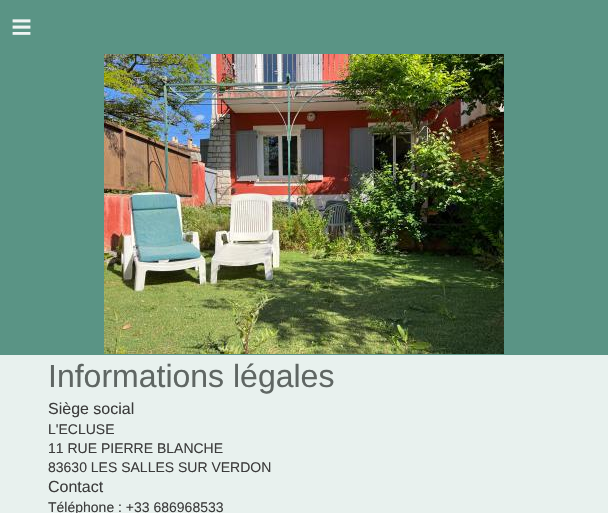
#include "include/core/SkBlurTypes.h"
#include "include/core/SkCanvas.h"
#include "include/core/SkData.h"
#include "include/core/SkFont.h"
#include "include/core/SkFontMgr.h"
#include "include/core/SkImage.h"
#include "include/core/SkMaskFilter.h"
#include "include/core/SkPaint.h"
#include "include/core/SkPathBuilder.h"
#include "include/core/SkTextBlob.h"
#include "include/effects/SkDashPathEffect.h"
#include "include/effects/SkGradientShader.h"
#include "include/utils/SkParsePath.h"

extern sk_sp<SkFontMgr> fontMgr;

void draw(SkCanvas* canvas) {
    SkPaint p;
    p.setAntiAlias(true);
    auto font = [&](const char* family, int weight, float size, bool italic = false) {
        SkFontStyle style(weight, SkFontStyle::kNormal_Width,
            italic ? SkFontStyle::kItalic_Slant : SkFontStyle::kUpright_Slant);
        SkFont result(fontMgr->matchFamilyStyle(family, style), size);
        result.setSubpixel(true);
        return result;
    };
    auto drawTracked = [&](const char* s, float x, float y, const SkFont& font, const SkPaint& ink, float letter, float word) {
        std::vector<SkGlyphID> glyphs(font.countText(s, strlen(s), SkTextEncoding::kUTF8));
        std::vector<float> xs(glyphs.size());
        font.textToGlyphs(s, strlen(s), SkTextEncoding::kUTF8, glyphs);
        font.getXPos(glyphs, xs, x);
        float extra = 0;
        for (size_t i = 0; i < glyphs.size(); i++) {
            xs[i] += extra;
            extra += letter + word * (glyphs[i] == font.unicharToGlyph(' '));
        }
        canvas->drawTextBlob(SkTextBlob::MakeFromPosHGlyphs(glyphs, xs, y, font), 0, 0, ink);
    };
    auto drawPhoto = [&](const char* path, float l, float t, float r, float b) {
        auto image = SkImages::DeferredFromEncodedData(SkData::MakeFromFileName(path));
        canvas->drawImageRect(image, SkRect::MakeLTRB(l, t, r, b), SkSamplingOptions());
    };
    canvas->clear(0xFF5A9485);
    auto font1 = font("Liberation Sans", 400, 36);
    p.setColor(0xFFEFF4F3);
    drawTracked("≡", 11, 39, font1, p, 10, 0);
    drawPhoto("media/1.png", 104, 54, 504, 354);
    p.setColor(0xFFE8F1EE);
    canvas->drawRect(SkRect::MakeLTRB(0, 355, 608, 513), p);
    auto font2 = font("Liberation Sans", 400, 32);
    p.setColor(0xFF5F6663);
    canvas->drawString("Informations légales", 48, 387, font2, p);
    auto font3 = font("Liberation Sans", 400, 16);
    p.setColor(0xFF3C3C3C);
    canvas->drawString("Siège social", 48, 414, font3, p);
    auto font4 = font("Liberation Sans", 400, 14);
    {
        const struct { const char* s; float x, y; } items[] = {
            {"L'ECLUSE", 48, 434},
            {"11 RUE PIERRE BLANCHE", 48, 453},
            {"83630 LES SALLES SUR VERDON", 48, 472},
        };
        for (auto [s, x, y] : items) {
            canvas->drawString(s, x, y, font4, p);
        }
    }
    canvas->drawString("Contact", 48, 492, font3, p);
    canvas->drawString("Téléphone : +33 686968533", 48, 512, font4, p);
}
